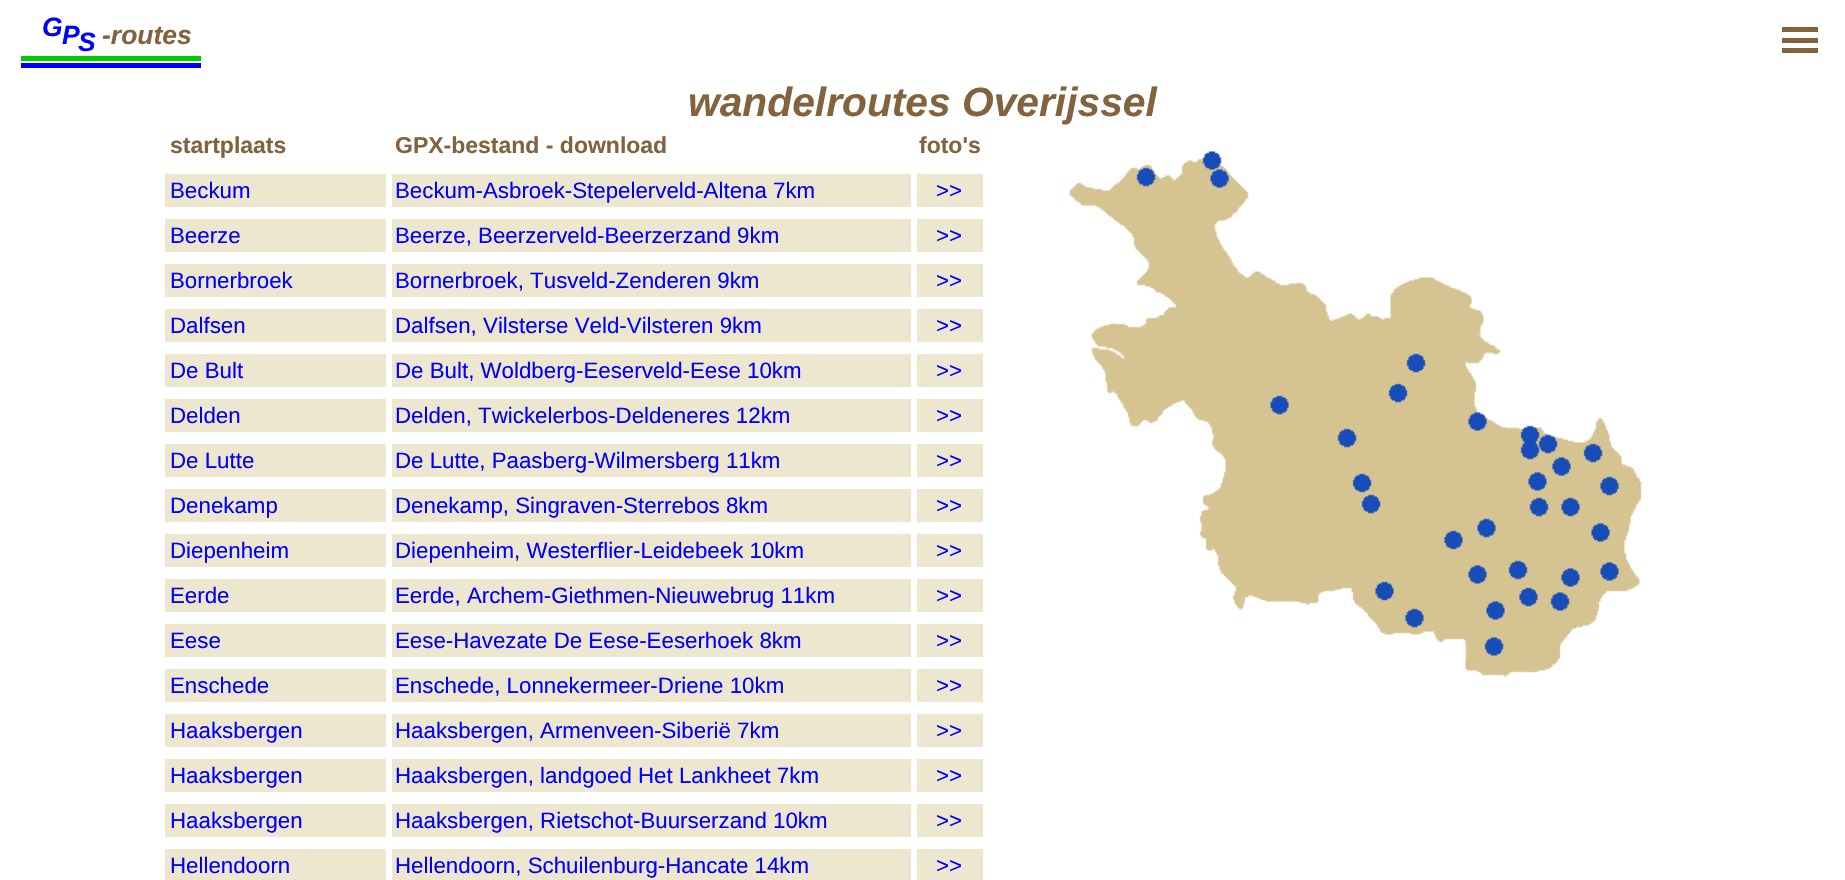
#include "include/core/SkBlurTypes.h"
#include "include/core/SkCanvas.h"
#include "include/core/SkData.h"
#include "include/core/SkFont.h"
#include "include/core/SkFontMgr.h"
#include "include/core/SkImage.h"
#include "include/core/SkMaskFilter.h"
#include "include/core/SkPaint.h"
#include "include/core/SkPathBuilder.h"
#include "include/core/SkTextBlob.h"
#include "include/effects/SkDashPathEffect.h"
#include "include/effects/SkGradientShader.h"
#include "include/utils/SkParsePath.h"

extern sk_sp<SkFontMgr> fontMgr;

void draw(SkCanvas* canvas) {
    SkPaint p;
    p.setAntiAlias(true);
    auto font = [&](const char* family, int weight, float size, bool italic = false) {
        SkFontStyle style(weight, SkFontStyle::kNormal_Width,
            italic ? SkFontStyle::kItalic_Slant : SkFontStyle::kUpright_Slant);
        SkFont result(fontMgr->matchFamilyStyle(family, style), size);
        result.setSubpixel(true);
        return result;
    };
    auto drawTracked = [&](const char* s, float x, float y, const SkFont& font, const SkPaint& ink, float letter, float word) {
        std::vector<SkGlyphID> glyphs(font.countText(s, strlen(s), SkTextEncoding::kUTF8));
        std::vector<float> xs(glyphs.size());
        font.textToGlyphs(s, strlen(s), SkTextEncoding::kUTF8, glyphs);
        font.getXPos(glyphs, xs, x);
        float extra = 0;
        for (size_t i = 0; i < glyphs.size(); i++) {
            xs[i] += extra;
            extra += letter + word * (glyphs[i] == font.unicharToGlyph(' '));
        }
        canvas->drawTextBlob(SkTextBlob::MakeFromPosHGlyphs(glyphs, xs, y, font), 0, 0, ink);
    };
    auto drawPhoto = [&](const char* path, float l, float t, float r, float b) {
        auto image = SkImages::DeferredFromEncodedData(SkData::MakeFromFileName(path));
        canvas->drawImageRect(image, SkRect::MakeLTRB(l, t, r, b), SkSamplingOptions());
    };
    canvas->clear(0xFFFFFFFF);
    auto font1 = font("Liberation Sans", 700, 26.5f, true);
    p.setColor(0xFF0000FF);
    {
        const struct { const char* s; float x, y; } items[] = {
            {"G", 42, 36},
            {"P", 62, 44},
            {"S", 78, 51},
        };
        for (auto [s, x, y] : items) {
            drawTracked(s, x, y, font1, p, -8, 0);
        }
    }
    p.setColor(0xFF82633D);
    canvas->drawString("-routes", 102, 44, font1, p);
    {
        const struct { float l, t, r, b; SkColor color; } items[] = {
            {21, 56, 201, 61, 0xFF00CC00},
            {21, 63, 201, 68, 0xFF0000FF},
            {1782, 27, 1818, 32, 0xFF82633D},
            {1782, 38, 1818, 43, 0xFF82633D},
            {1782, 48, 1818, 53, 0xFF82633D},
        };
        for (auto [l, t, r, b, color] : items) {
            p.setColor(color);
            canvas->drawRect(SkRect::MakeLTRB(l, t, r, b), p);
        }
    }
    auto font2 = font("Liberation Sans", 700, 40.75f, true);
    canvas->drawString("wandelroutes Overijssel", 688, 116, font2, p);
    auto font3 = font("Liberation Sans", 700, 23);
    {
        const struct { const char* s; float x, y; } items[] = {
            {"startplaats", 170, 153},
            {"GPX-bestand - download", 395, 153},
            {"foto's", 919, 153},
        };
        for (auto [s, x, y] : items) {
            canvas->drawString(s, x, y, font3, p);
        }
    }
    p.setColor(0xFFEEE7D0);
    canvas->drawRect(SkRect::MakeLTRB(165, 174, 386, 207), p);
    auto font4 = font("Liberation Sans", 400, 22.3f);
    p.setColor(0xFF0000FF);
    canvas->drawString("Beckum", 170, 198, font4, p);
    p.setColor(0xFFEEE7D0);
    canvas->drawRect(SkRect::MakeLTRB(392, 174, 911, 207), p);
    p.setColor(0xFF0000FF);
    canvas->drawString("Beckum-Asbroek-Stepelerveld-Altena 7km", 395, 198, font4, p);
    p.setColor(0xFFEEE7D0);
    canvas->drawRect(SkRect::MakeLTRB(917, 174, 983, 207), p);
    p.setColor(0xFF0000FF);
    canvas->drawString(">>", 936, 198, font4, p);
    p.setColor(0xFFEEE7D0);
    canvas->drawRect(SkRect::MakeLTRB(165, 219, 386, 252), p);
    p.setColor(0xFF0000FF);
    canvas->drawString("Beerze", 170, 243, font4, p);
    p.setColor(0xFFEEE7D0);
    canvas->drawRect(SkRect::MakeLTRB(392, 219, 911, 252), p);
    p.setColor(0xFF0000FF);
    canvas->drawString("Beerze, Beerzerveld-Beerzerzand 9km", 395, 243, font4, p);
    p.setColor(0xFFEEE7D0);
    canvas->drawRect(SkRect::MakeLTRB(917, 219, 983, 252), p);
    p.setColor(0xFF0000FF);
    canvas->drawString(">>", 936, 243, font4, p);
    p.setColor(0xFFEEE7D0);
    canvas->drawRect(SkRect::MakeLTRB(165, 264, 386, 297), p);
    p.setColor(0xFF0000FF);
    canvas->drawString("Bornerbroek", 170, 288, font4, p);
    p.setColor(0xFFEEE7D0);
    canvas->drawRect(SkRect::MakeLTRB(392, 264, 911, 297), p);
    p.setColor(0xFF0000FF);
    canvas->drawString("Bornerbroek, Tusveld-Zenderen 9km", 395, 288, font4, p);
    p.setColor(0xFFEEE7D0);
    canvas->drawRect(SkRect::MakeLTRB(917, 264, 983, 297), p);
    p.setColor(0xFF0000FF);
    canvas->drawString(">>", 936, 288, font4, p);
    p.setColor(0xFFEEE7D0);
    canvas->drawRect(SkRect::MakeLTRB(165, 309, 386, 342), p);
    p.setColor(0xFF0000FF);
    canvas->drawString("Dalfsen", 170, 333, font4, p);
    p.setColor(0xFFEEE7D0);
    canvas->drawRect(SkRect::MakeLTRB(392, 309, 911, 342), p);
    p.setColor(0xFF0000FF);
    canvas->drawString("Dalfsen, Vilsterse Veld-Vilsteren 9km", 395, 333, font4, p);
    p.setColor(0xFFEEE7D0);
    canvas->drawRect(SkRect::MakeLTRB(917, 309, 983, 342), p);
    p.setColor(0xFF0000FF);
    canvas->drawString(">>", 936, 333, font4, p);
    p.setColor(0xFFEEE7D0);
    canvas->drawRect(SkRect::MakeLTRB(165, 354, 386, 387), p);
    p.setColor(0xFF0000FF);
    canvas->drawString("De Bult", 170, 378, font4, p);
    p.setColor(0xFFEEE7D0);
    canvas->drawRect(SkRect::MakeLTRB(392, 354, 911, 387), p);
    p.setColor(0xFF0000FF);
    canvas->drawString("De Bult, Woldberg-Eeserveld-Eese 10km", 395, 378, font4, p);
    p.setColor(0xFFEEE7D0);
    canvas->drawRect(SkRect::MakeLTRB(917, 354, 983, 387), p);
    p.setColor(0xFF0000FF);
    canvas->drawString(">>", 936, 378, font4, p);
    p.setColor(0xFFEEE7D0);
    canvas->drawRect(SkRect::MakeLTRB(165, 399, 386, 432), p);
    p.setColor(0xFF0000FF);
    canvas->drawString("Delden", 170, 423, font4, p);
    p.setColor(0xFFEEE7D0);
    canvas->drawRect(SkRect::MakeLTRB(392, 399, 911, 432), p);
    p.setColor(0xFF0000FF);
    canvas->drawString("Delden, Twickelerbos-Deldeneres 12km", 395, 423, font4, p);
    p.setColor(0xFFEEE7D0);
    canvas->drawRect(SkRect::MakeLTRB(917, 399, 983, 432), p);
    p.setColor(0xFF0000FF);
    canvas->drawString(">>", 936, 423, font4, p);
    p.setColor(0xFFEEE7D0);
    canvas->drawRect(SkRect::MakeLTRB(165, 444, 386, 477), p);
    p.setColor(0xFF0000FF);
    canvas->drawString("De Lutte", 170, 468, font4, p);
    p.setColor(0xFFEEE7D0);
    canvas->drawRect(SkRect::MakeLTRB(392, 444, 911, 477), p);
    p.setColor(0xFF0000FF);
    canvas->drawString("De Lutte, Paasberg-Wilmersberg 11km", 395, 468, font4, p);
    p.setColor(0xFFEEE7D0);
    canvas->drawRect(SkRect::MakeLTRB(917, 444, 983, 477), p);
    p.setColor(0xFF0000FF);
    canvas->drawString(">>", 936, 468, font4, p);
    p.setColor(0xFFEEE7D0);
    canvas->drawRect(SkRect::MakeLTRB(165, 489, 386, 522), p);
    p.setColor(0xFF0000FF);
    canvas->drawString("Denekamp", 170, 513, font4, p);
    p.setColor(0xFFEEE7D0);
    canvas->drawRect(SkRect::MakeLTRB(392, 489, 911, 522), p);
    p.setColor(0xFF0000FF);
    canvas->drawString("Denekamp, Singraven-Sterrebos 8km", 395, 513, font4, p);
    p.setColor(0xFFEEE7D0);
    canvas->drawRect(SkRect::MakeLTRB(917, 489, 983, 522), p);
    p.setColor(0xFF0000FF);
    canvas->drawString(">>", 936, 513, font4, p);
    p.setColor(0xFFEEE7D0);
    canvas->drawRect(SkRect::MakeLTRB(165, 534, 386, 567), p);
    p.setColor(0xFF0000FF);
    canvas->drawString("Diepenheim", 170, 558, font4, p);
    p.setColor(0xFFEEE7D0);
    canvas->drawRect(SkRect::MakeLTRB(392, 534, 911, 567), p);
    p.setColor(0xFF0000FF);
    canvas->drawString("Diepenheim, Westerflier-Leidebeek 10km", 395, 558, font4, p);
    p.setColor(0xFFEEE7D0);
    canvas->drawRect(SkRect::MakeLTRB(917, 534, 983, 567), p);
    p.setColor(0xFF0000FF);
    canvas->drawString(">>", 936, 558, font4, p);
    p.setColor(0xFFEEE7D0);
    canvas->drawRect(SkRect::MakeLTRB(165, 579, 386, 612), p);
    p.setColor(0xFF0000FF);
    canvas->drawString("Eerde", 170, 603, font4, p);
    p.setColor(0xFFEEE7D0);
    canvas->drawRect(SkRect::MakeLTRB(392, 579, 911, 612), p);
    p.setColor(0xFF0000FF);
    canvas->drawString("Eerde, Archem-Giethmen-Nieuwebrug 11km", 395, 603, font4, p);
    p.setColor(0xFFEEE7D0);
    canvas->drawRect(SkRect::MakeLTRB(917, 579, 983, 612), p);
    p.setColor(0xFF0000FF);
    canvas->drawString(">>", 936, 603, font4, p);
    p.setColor(0xFFEEE7D0);
    canvas->drawRect(SkRect::MakeLTRB(165, 624, 386, 657), p);
    p.setColor(0xFF0000FF);
    canvas->drawString("Eese", 170, 648, font4, p);
    p.setColor(0xFFEEE7D0);
    canvas->drawRect(SkRect::MakeLTRB(392, 624, 911, 657), p);
    p.setColor(0xFF0000FF);
    canvas->drawString("Eese-Havezate De Eese-Eeserhoek 8km", 395, 648, font4, p);
    p.setColor(0xFFEEE7D0);
    canvas->drawRect(SkRect::MakeLTRB(917, 624, 983, 657), p);
    p.setColor(0xFF0000FF);
    canvas->drawString(">>", 936, 648, font4, p);
    p.setColor(0xFFEEE7D0);
    canvas->drawRect(SkRect::MakeLTRB(165, 669, 386, 702), p);
    p.setColor(0xFF0000FF);
    canvas->drawString("Enschede", 170, 693, font4, p);
    p.setColor(0xFFEEE7D0);
    canvas->drawRect(SkRect::MakeLTRB(392, 669, 911, 702), p);
    p.setColor(0xFF0000FF);
    canvas->drawString("Enschede, Lonnekermeer-Driene 10km", 395, 693, font4, p);
    p.setColor(0xFFEEE7D0);
    canvas->drawRect(SkRect::MakeLTRB(917, 669, 983, 702), p);
    p.setColor(0xFF0000FF);
    canvas->drawString(">>", 936, 693, font4, p);
    p.setColor(0xFFEEE7D0);
    canvas->drawRect(SkRect::MakeLTRB(165, 714, 386, 747), p);
    p.setColor(0xFF0000FF);
    canvas->drawString("Haaksbergen", 170, 738, font4, p);
    p.setColor(0xFFEEE7D0);
    canvas->drawRect(SkRect::MakeLTRB(392, 714, 911, 747), p);
    p.setColor(0xFF0000FF);
    canvas->drawString("Haaksbergen, Armenveen-Siberië 7km", 395, 738, font4, p);
    p.setColor(0xFFEEE7D0);
    canvas->drawRect(SkRect::MakeLTRB(917, 714, 983, 747), p);
    p.setColor(0xFF0000FF);
    canvas->drawString(">>", 936, 738, font4, p);
    p.setColor(0xFFEEE7D0);
    canvas->drawRect(SkRect::MakeLTRB(165, 759, 386, 792), p);
    p.setColor(0xFF0000FF);
    canvas->drawString("Haaksbergen", 170, 783, font4, p);
    p.setColor(0xFFEEE7D0);
    canvas->drawRect(SkRect::MakeLTRB(392, 759, 911, 792), p);
    p.setColor(0xFF0000FF);
    canvas->drawString("Haaksbergen, landgoed Het Lankheet 7km", 395, 783, font4, p);
    p.setColor(0xFFEEE7D0);
    canvas->drawRect(SkRect::MakeLTRB(917, 759, 983, 792), p);
    p.setColor(0xFF0000FF);
    canvas->drawString(">>", 936, 783, font4, p);
    p.setColor(0xFFEEE7D0);
    canvas->drawRect(SkRect::MakeLTRB(165, 804, 386, 837), p);
    p.setColor(0xFF0000FF);
    canvas->drawString("Haaksbergen", 170, 828, font4, p);
    p.setColor(0xFFEEE7D0);
    canvas->drawRect(SkRect::MakeLTRB(392, 804, 911, 837), p);
    p.setColor(0xFF0000FF);
    canvas->drawString("Haaksbergen, Rietschot-Buurserzand 10km", 395, 828, font4, p);
    p.setColor(0xFFEEE7D0);
    canvas->drawRect(SkRect::MakeLTRB(917, 804, 983, 837), p);
    p.setColor(0xFF0000FF);
    canvas->drawString(">>", 936, 828, font4, p);
    p.setColor(0xFFEEE7D0);
    canvas->drawRect(SkRect::MakeLTRB(165, 849, 386, 880), p);
    p.setColor(0xFF0000FF);
    canvas->drawString("Hellendoorn", 170, 873, font4, p);
    p.setColor(0xFFEEE7D0);
    canvas->drawRect(SkRect::MakeLTRB(392, 849, 911, 880), p);
    p.setColor(0xFF0000FF);
    canvas->drawString("Hellendoorn, Schuilenburg-Hancate 14km", 395, 873, font4, p);
    p.setColor(0xFFEEE7D0);
    canvas->drawRect(SkRect::MakeLTRB(917, 849, 983, 880), p);
    p.setColor(0xFF0000FF);
    canvas->drawString(">>", 936, 873, font4, p);
    drawPhoto("media/1.png", 1069, 151, 1642, 677);
}
